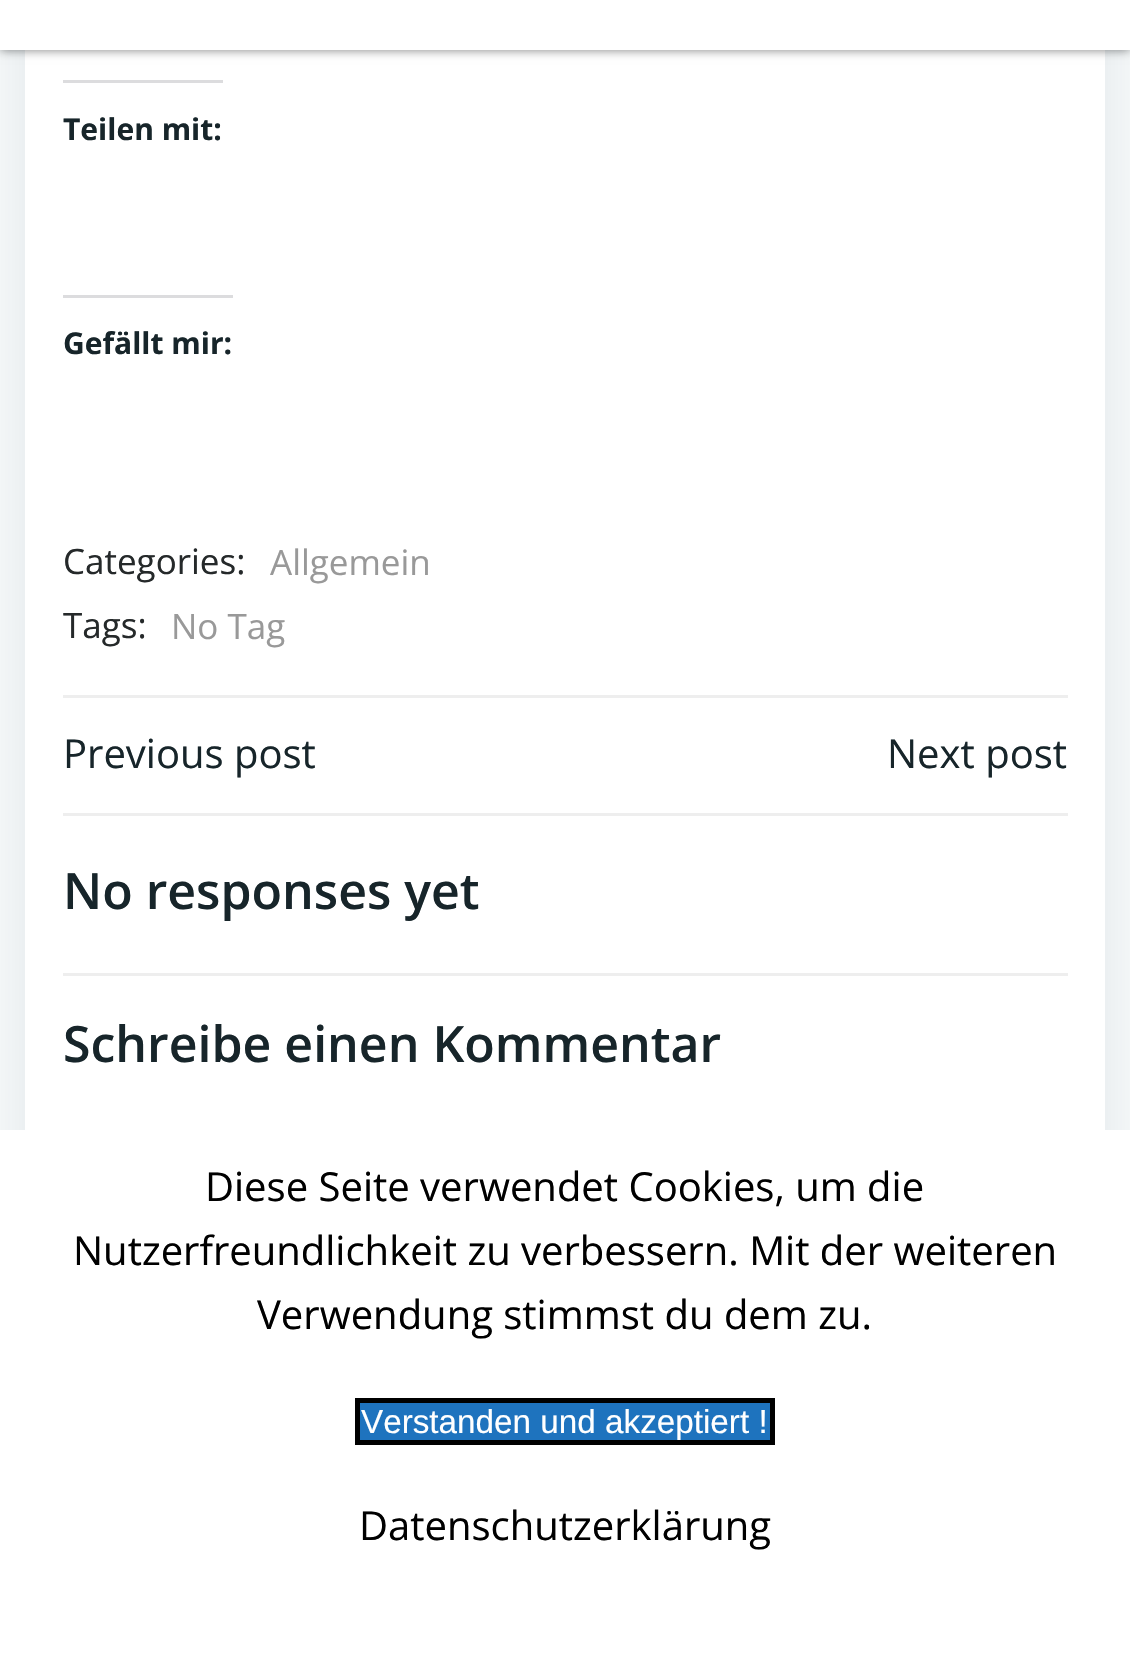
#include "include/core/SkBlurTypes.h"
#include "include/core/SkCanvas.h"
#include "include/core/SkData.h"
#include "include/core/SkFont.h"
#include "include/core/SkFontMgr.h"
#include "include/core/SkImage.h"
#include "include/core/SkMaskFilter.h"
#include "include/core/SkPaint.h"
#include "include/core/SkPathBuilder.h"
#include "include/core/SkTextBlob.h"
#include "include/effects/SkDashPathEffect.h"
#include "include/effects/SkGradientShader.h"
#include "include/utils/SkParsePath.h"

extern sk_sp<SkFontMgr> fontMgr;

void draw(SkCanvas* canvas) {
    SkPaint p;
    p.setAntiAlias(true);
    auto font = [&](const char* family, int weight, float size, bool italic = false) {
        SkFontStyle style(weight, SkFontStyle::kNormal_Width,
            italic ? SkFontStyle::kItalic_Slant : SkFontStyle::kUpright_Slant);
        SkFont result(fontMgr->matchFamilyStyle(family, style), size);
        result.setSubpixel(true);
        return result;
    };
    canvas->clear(0xFFFFFFFF);
    p.setColor(0x80000000);
    p.setMaskFilter(SkMaskFilter::MakeBlur(kNormal_SkBlurStyle, 5));
    canvas->drawRect(SkRect::MakeLTRB(0, 0, 1130, 50), p);
    p.setMaskFilter(nullptr);
    canvas->save();
    canvas->clipPath(SkPathBuilder(SkPathFillType::kEvenOdd).moveTo(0, 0).lineTo(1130, 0).lineTo(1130, 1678).lineTo(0, 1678).close().moveTo(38, -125).lineTo(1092, -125).cubicTo(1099, -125, 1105, -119, 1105, -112).lineTo(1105, 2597).cubicTo(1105, 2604, 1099, 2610, 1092, 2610).lineTo(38, 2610).cubicTo(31, 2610, 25, 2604, 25, 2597).lineTo(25, -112).cubicTo(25, -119, 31, -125, 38, -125).close().detach(), true);
    p.setColor(0x2601334A);
    p.setMaskFilter(SkMaskFilter::MakeBlur(kNormal_SkBlurStyle, 50));
    canvas->drawRoundRect(SkRect::MakeLTRB(25, -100, 1105, 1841), 13, 13, p);
    p.setMaskFilter(nullptr);
    canvas->restore();
    p.setColor(0xFFFFFFFF);
    canvas->drawRect(SkRect::MakeLTRB(0, 0, 1130, 50), p);
    p.setColor(0xFFDCDCDE);
    canvas->drawRect(SkRect::MakeLTRB(63, 80, 223, 83), p);
    auto font1 = font("Open Sans", 700, 30);
    p.setColor(0xFF17252A);
    canvas->drawString("Teilen mit:", 63, 140, font1, p);
    p.setColor(0xFFDCDCDE);
    canvas->drawRect(SkRect::MakeLTRB(63, 295, 233, 298), p);
    p.setColor(0xFF17252A);
    canvas->drawString("Gefällt mir:", 63, 354, font1, p);
    auto font2 = font("Open Sans", 400, 35);
    p.setColor(0xFF25292A);
    canvas->drawString("Categories:", 63, 574, font2, p);
    p.setColor(0xFF999999);
    canvas->drawString("Allgemein", 270, 575, font2, p);
    p.setColor(0xFF25292A);
    canvas->drawString("Tags:", 63, 638, font2, p);
    p.setColor(0xFF999999);
    canvas->drawString("No Tag", 171, 639, font2, p);
    p.setColor(0xFFEEEEEE);
    canvas->drawRect(SkRect::MakeLTRB(63, 695, 1068, 698), p);
    auto font3 = font("Open Sans", 400, 40);
    p.setColor(0xFF17252A);
    canvas->drawString("Previous post", 63, 768, font3, p);
    canvas->drawString("Next post", 887, 768, font3, p);
    p.setColor(0xFFEEEEEE);
    canvas->drawRect(SkRect::MakeLTRB(63, 813, 1068, 816), p);
    auto font4 = font("Open Sans", 600, 50);
    p.setColor(0xFF17252A);
    canvas->drawString("No responses yet", 63, 909, font4, p);
    p.setColor(0xFFEEEEEE);
    canvas->drawRect(SkRect::MakeLTRB(63, 973, 1068, 976), p);
    p.setColor(0xFF17252A);
    canvas->drawString("Schreibe einen Kommentar", 63, 1062, font4, p);
    p.setColor(0xFFFFFFFF);
    canvas->drawRect(SkRect::MakeLTRB(0, 1130, 1130, 1678), p);
    p.setColor(0xFF000000);
    {
        const struct { const char* s; float x, y; } items[] = {
            {"Diese Seite verwendet Cookies, um die", 205, 1201},
            {"Nutzerfreundlichkeit zu verbessern. Mit der weiteren", 73, 1265},
            {"Verwendung stimmst du dem zu.", 257, 1329},
        };
        for (auto [s, x, y] : items) {
            canvas->drawString(s, x, y, font3, p);
        }
    }
    p.setColor(0xFF1E73BE);
    canvas->drawRect(SkRect::MakeLTRB(357.5f, 1400.5f, 772.5f, 1442.5f), p);
    p.setStyle(SkPaint::kStroke_Style);
    p.setStrokeWidth(5);
    p.setColor(0xFF000000);
    canvas->drawRect(SkRect::MakeLTRB(357.5f, 1400.5f, 772.5f, 1442.5f), p);
    auto font5 = font("Liberation Sans", 400, 33.25f);
    p.setStyle(SkPaint::kFill_Style);
    p.setColor(0xFFFFFFFF);
    canvas->drawString("Verstanden und akzeptiert !", 361, 1433, font5, p);
    p.setColor(0xFF000000);
    canvas->drawString("Datenschutzerklärung", 359, 1540, font3, p);
}
